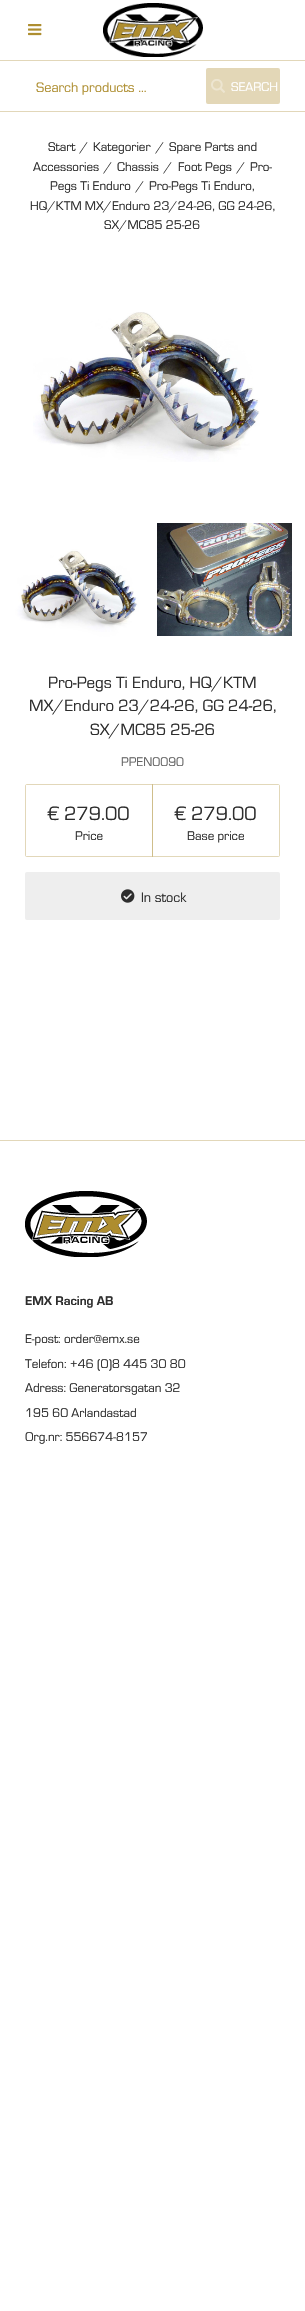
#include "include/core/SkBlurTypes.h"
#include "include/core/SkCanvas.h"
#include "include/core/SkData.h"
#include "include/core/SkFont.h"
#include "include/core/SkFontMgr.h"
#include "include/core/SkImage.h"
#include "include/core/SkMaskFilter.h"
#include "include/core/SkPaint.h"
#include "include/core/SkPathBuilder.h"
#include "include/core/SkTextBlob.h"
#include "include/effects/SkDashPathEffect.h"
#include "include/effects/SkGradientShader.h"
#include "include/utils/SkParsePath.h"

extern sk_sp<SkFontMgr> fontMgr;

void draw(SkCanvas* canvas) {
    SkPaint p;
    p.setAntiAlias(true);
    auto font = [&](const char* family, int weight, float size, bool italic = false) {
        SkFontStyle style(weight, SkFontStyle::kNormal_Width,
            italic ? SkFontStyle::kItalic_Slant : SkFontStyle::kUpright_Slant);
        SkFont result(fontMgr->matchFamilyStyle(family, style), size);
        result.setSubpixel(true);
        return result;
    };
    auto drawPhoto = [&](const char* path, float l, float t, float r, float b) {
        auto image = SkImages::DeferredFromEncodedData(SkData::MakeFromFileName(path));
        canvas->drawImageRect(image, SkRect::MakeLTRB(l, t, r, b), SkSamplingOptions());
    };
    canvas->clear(0xFFFFFFFF);
    p.setColor(0xFFE2D7B9);
    canvas->drawRect(SkRect::MakeLTRB(0, 60, 305, 61), p);
    drawPhoto("media/1.png", 28, 24, 42, 36);
    drawPhoto("media/2.png", 103, 3, 203, 57);
    canvas->drawRect(SkRect::MakeLTRB(0, 111, 305, 112), p);
    auto font1 = font("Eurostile", 400, 14.25f);
    p.setColor(0xFFAE8E30);
    canvas->drawString("Search products ...", 36, 92, font1, p);
    p.setColor(0xFFE3D7B7);
    canvas->drawRoundRect(SkRect::MakeLTRB(207, 69, 279, 103), 1, 1, p);
    p.setStyle(SkPaint::kStroke_Style);
    p.setStrokeWidth(2);
    canvas->drawRoundRect(SkRect::MakeLTRB(207, 69, 279, 103), 1, 1, p);
    drawPhoto("media/3.png", 211, 79, 225, 93);
    auto font2 = font("Eurostile", 400, 13);
    p.setStyle(SkPaint::kFill_Style);
    p.setColor(0xFFFFFFFF);
    canvas->drawString("SEARCH", 231, 91, font2, p);
    p.setColor(0xFF2D2D2D);
    {
        const struct { const char* s; float x, y; } items[] = {
            {"Start", 48, 151},
            {"/", 80, 151},
            {"Kategorier", 93, 151},
            {"/", 156, 151},
            {"Spare Parts and", 169, 151},
            {"Accessories", 33, 171},
            {"/", 104, 171},
            {"Chassis", 117, 171},
            {"/", 164, 171},
            {"Foot Pegs", 178, 171},
            {"/", 237, 171},
            {"Pro-", 250, 171},
            {"Pegs Ti Enduro", 50, 190},
            {"/", 136, 190},
            {"Pro-Pegs Ti Enduro,", 149, 190},
            {"HQ/KTM MX/Enduro 23/24-26, GG 24-26,", 30, 210},
            {"SX/MC85 25-26", 104, 229},
        };
        for (auto [s, x, y] : items) {
            canvas->drawString(s, x, y, font2, p);
        }
    }
    drawPhoto("media/4.png", 33, 312, 260, 462);
    drawPhoto("media/5.png", 14, 524, 147, 658);
    drawPhoto("media/6.png", 157, 523, 292, 636);
    auto font3 = font("Eurostile", 400, 16.9f);
    {
        const struct { const char* s; float x, y; } items[] = {
            {"Pro-Pegs Ti Enduro, HQ/KTM", 48, 688},
            {"MX/Enduro 23/24-26, GG 24-26,", 29, 711},
            {"SX/MC85 25-26", 90, 735},
        };
        for (auto [s, x, y] : items) {
            canvas->drawString(s, x, y, font3, p);
        }
    }
    p.setColor(0xFF636363);
    canvas->drawString("PPEN0090", 121, 766, font2, p);
    p.setColor(0xFFE2D7B9);
    canvas->drawPath(SkPathBuilder(SkPathFillType::kEvenOdd).moveTo(27, 784).cubicTo(26, 784, 25, 785, 25, 786).lineTo(25, 855).cubicTo(25, 856, 26, 857, 27, 857).lineTo(153, 857).lineTo(153, 784).close().moveTo(26, 785).lineTo(26, 856).lineTo(152, 856).lineTo(152, 785).close().detach(), p);
    auto font4 = font("Eurostile", 400, 20);
    p.setColor(0xFF2D2D2D);
    canvas->drawString("€ 279.00", 47, 820, font4, p);
    canvas->drawString("Price", 75, 840, font2, p);
    p.setColor(0x59AC8E36);
    canvas->drawPath(SkPathBuilder(SkPathFillType::kEvenOdd).moveTo(152, 784).lineTo(152, 857).lineTo(278, 857).cubicTo(279, 857, 280, 856, 280, 855).lineTo(280, 786).cubicTo(280, 785, 279, 784, 278, 784).close().moveTo(153, 785).lineTo(153, 856).lineTo(279, 856).lineTo(279, 785).close().detach(), p);
    p.setColor(0xFF2D2D2D);
    canvas->drawString("€ 279.00", 174, 820, font4, p);
    canvas->drawString("Base price", 187, 840, font2, p);
    p.setColor(0xFFEEEEEE);
    canvas->drawRoundRect(SkRect::MakeLTRB(25, 872, 280, 920), 2, 2, p);
    drawPhoto("media/7.png", 121, 889, 135, 903);
    p.setColor(0xFF2D2D2D);
    canvas->drawString("In stock", 141, 902, font1, p);
    p.setColor(0xFFE2D7B9);
    canvas->drawRect(SkRect::MakeLTRB(0, 1140, 305, 1141), p);
    drawPhoto("media/8.png", 25, 1191, 147, 1257);
    auto font5 = font("Eurostile", 700, 13);
    p.setColor(0xFF2D2D2D);
    canvas->drawString("EMX Racing AB", 25, 1305, font5, p);
    {
        const struct { const char* s; float x, y; } items[] = {
            {"E-post: order@emx.se", 25, 1343},
            {"Telefon: +46 (0)8 445 30 80", 25, 1368},
            {"Adress: Generatorsgatan 32", 25, 1392},
            {"195 60 Arlandastad", 25, 1417},
            {"Org.nr: 556674-8157", 25, 1441},
        };
        for (auto [s, x, y] : items) {
            canvas->drawString(s, x, y, font2, p);
        }
    }
}
